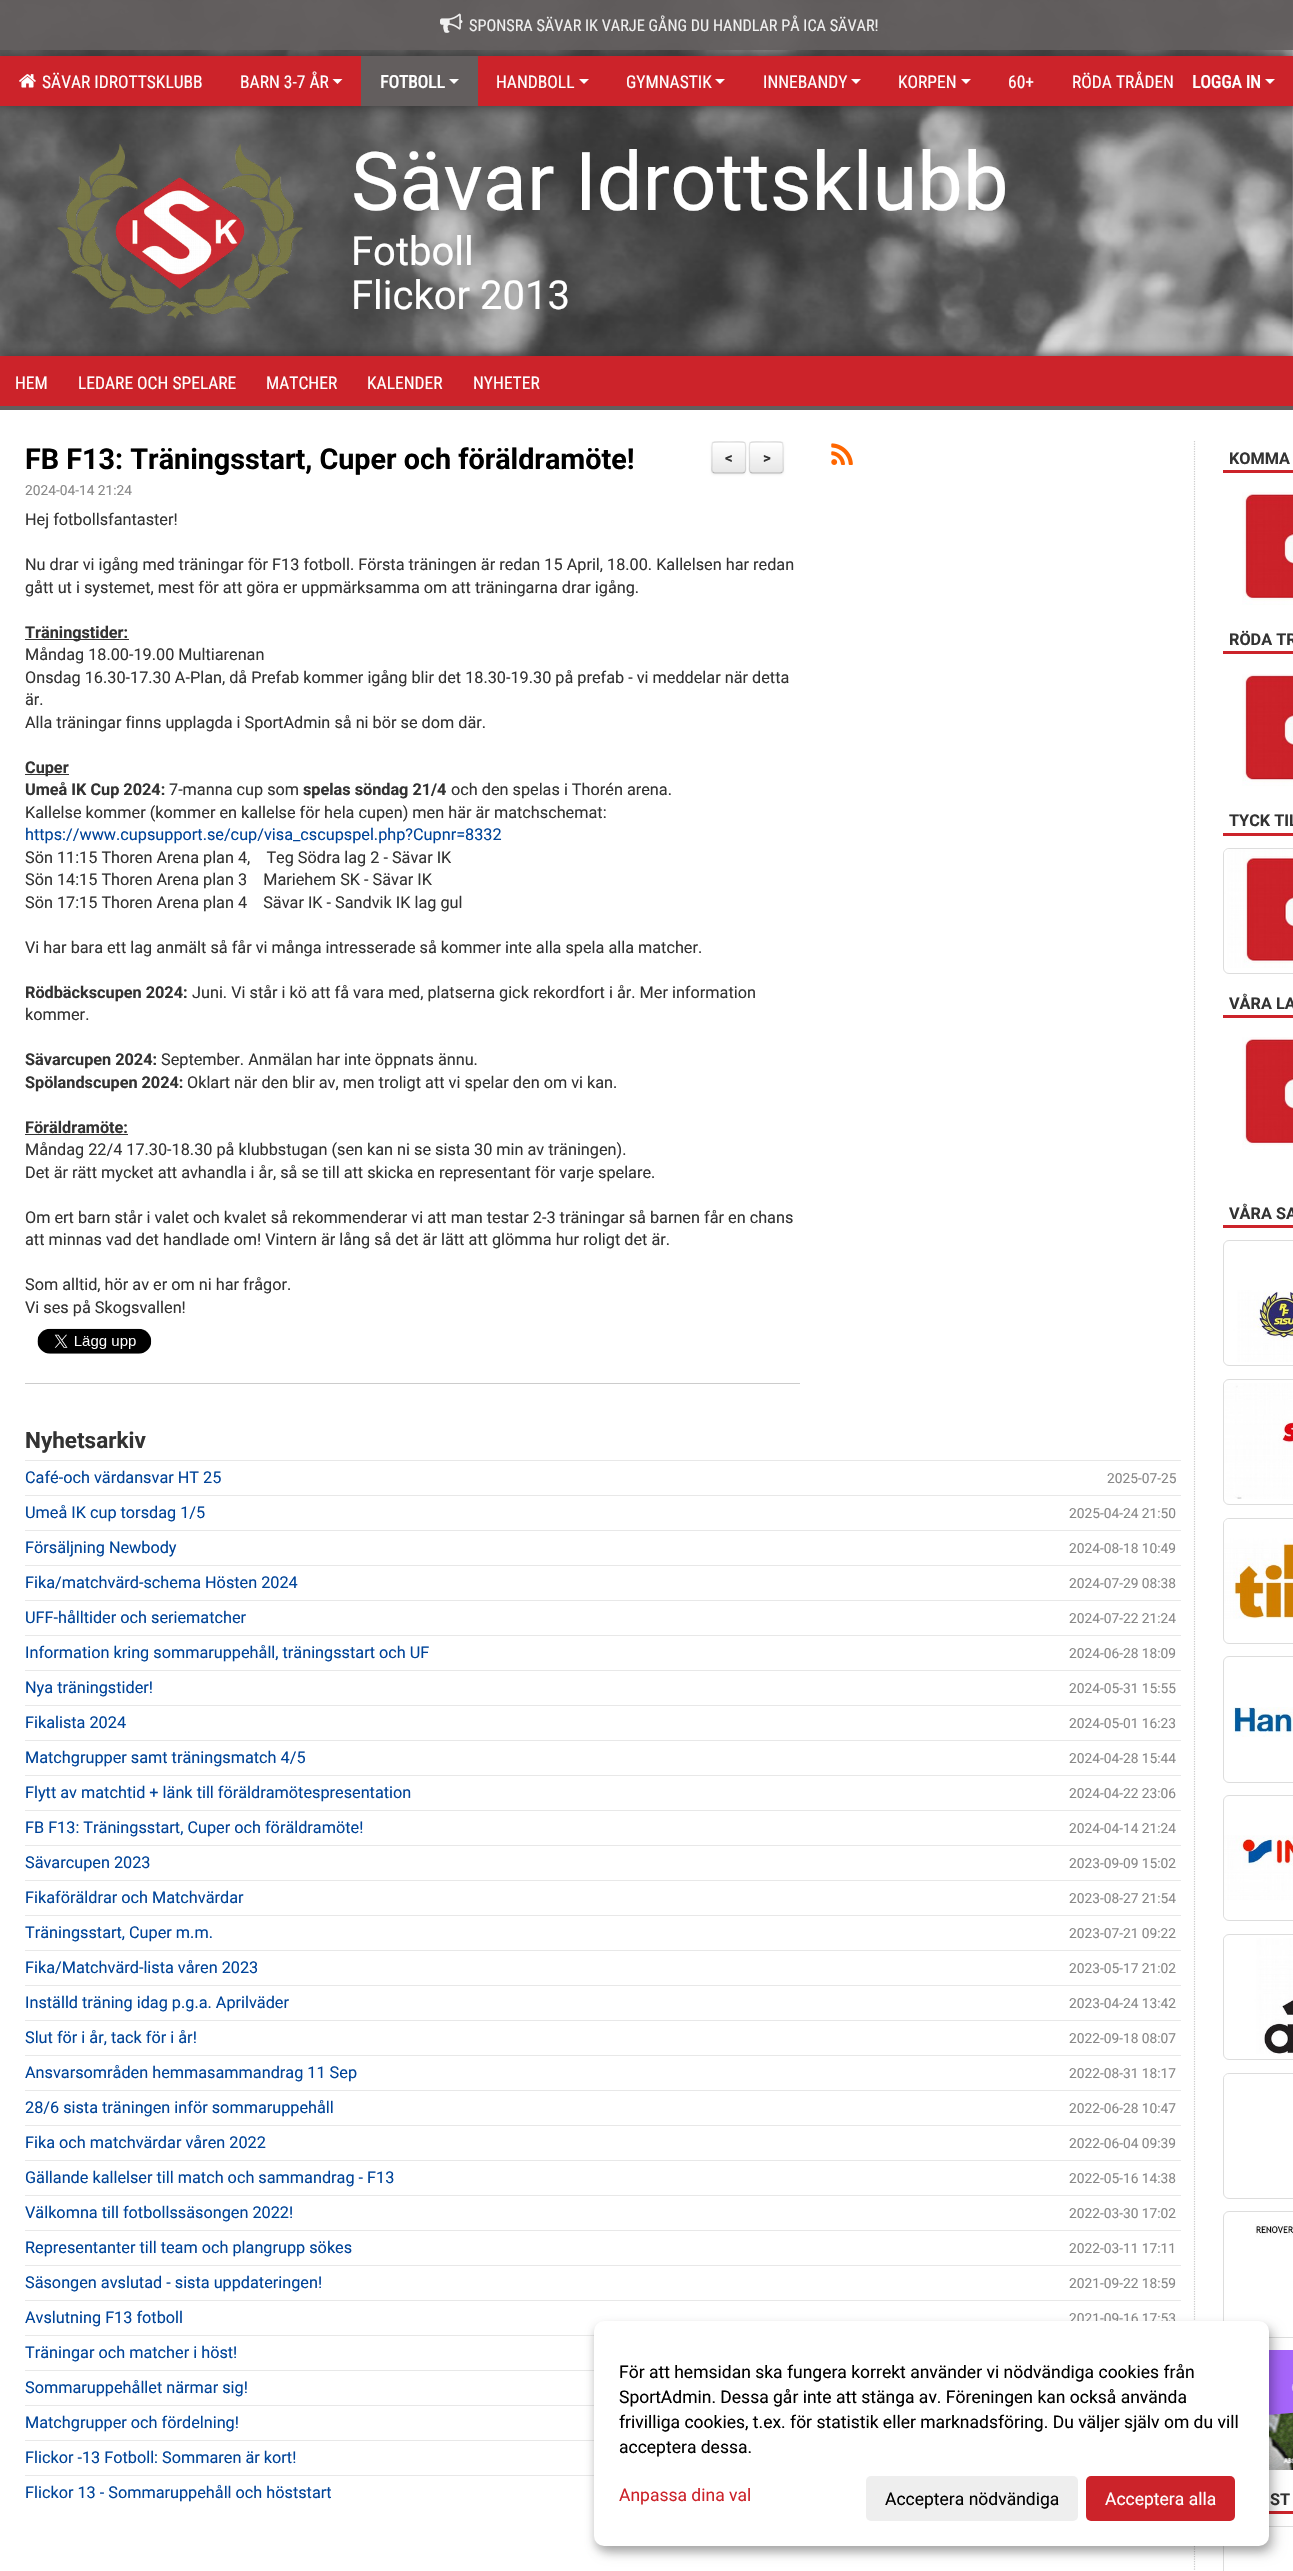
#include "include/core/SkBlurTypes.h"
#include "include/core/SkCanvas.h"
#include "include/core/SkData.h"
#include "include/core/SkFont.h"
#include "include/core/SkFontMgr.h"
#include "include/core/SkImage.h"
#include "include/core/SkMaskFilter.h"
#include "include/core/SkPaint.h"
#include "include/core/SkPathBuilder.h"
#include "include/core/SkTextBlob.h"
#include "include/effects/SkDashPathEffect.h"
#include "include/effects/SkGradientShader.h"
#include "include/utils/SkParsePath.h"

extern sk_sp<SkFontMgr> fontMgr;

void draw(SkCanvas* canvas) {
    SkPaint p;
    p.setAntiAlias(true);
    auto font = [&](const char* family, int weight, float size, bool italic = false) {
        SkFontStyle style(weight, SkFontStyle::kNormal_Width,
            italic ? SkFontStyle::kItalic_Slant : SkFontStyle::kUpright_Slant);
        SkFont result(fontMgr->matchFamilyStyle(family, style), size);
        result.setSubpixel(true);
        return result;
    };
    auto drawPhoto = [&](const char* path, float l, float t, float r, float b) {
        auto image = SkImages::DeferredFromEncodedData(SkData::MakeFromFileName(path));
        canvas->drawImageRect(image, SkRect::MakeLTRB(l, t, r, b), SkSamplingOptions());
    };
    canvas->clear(0xFFFFFFFF);
    drawPhoto("media/1.png", 0, 0, 1293, 356);
    p.setColor(0xFF333333);
    p.setMaskFilter(SkMaskFilter::MakeBlur(kNormal_SkBlurStyle, 6));
    canvas->drawRect(SkRect::MakeLTRB(0, 56, 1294, 106), p);
    p.setMaskFilter(nullptr);
    p.setColor(0xE6635E5E);
    canvas->drawRect(SkRect::MakeLTRB(0, 0, 1293, 50), p);
    drawPhoto("media/2.png", 440, 13, 463, 33);
    auto font1 = font("Roboto Condensed", 400, 16.25f);
    p.setColor(0xFFEFEFEF);
    canvas->drawString("SPONSRA SÄVAR IK VARJE GÅNG DU HANDLAR PÅ ICA SÄVAR!", 469, 31, font1, p);
    p.setColor(0xFFCC232A);
    canvas->drawRect(SkRect::MakeLTRB(0, 56, 1293, 106), p);
    drawPhoto("media/3.png", 19, 74, 36, 88);
    auto font2 = font("Roboto Condensed", 400, 17.5f);
    p.setColor(0xFFFFFFFF);
    canvas->drawString("SÄVAR IDROTTSKLUBB", 42, 88, font2, p);
    canvas->drawString("BARN 3-7 ÅR", 240, 88, font2, p);
    canvas->drawPath(SkPathBuilder().moveTo(332.5f, 79).lineTo(342.5f, 79).lineTo(337.5f, 84).close().detach(), p);
    p.setColor(0xFF635E5E);
    canvas->drawRect(SkRect::MakeLTRB(361, 56, 478, 106), p);
    auto font3 = font("Roboto Condensed", 700, 17.5f);
    p.setColor(0xFFFFFFFF);
    canvas->drawString("FOTBOLL", 380, 88, font3, p);
    canvas->drawPath(SkPathBuilder().moveTo(449, 79).lineTo(459, 79).lineTo(454, 84).close().detach(), p);
    canvas->drawString("HANDBOLL", 496, 88, font2, p);
    canvas->drawPath(SkPathBuilder().moveTo(579, 79).lineTo(589, 79).lineTo(584, 84).close().detach(), p);
    canvas->drawString("GYMNASTIK", 626, 88, font2, p);
    canvas->drawPath(SkPathBuilder().moveTo(715, 79).lineTo(725, 79).lineTo(720, 84).close().detach(), p);
    canvas->drawString("INNEBANDY", 763, 88, font2, p);
    canvas->drawPath(SkPathBuilder().moveTo(851, 79).lineTo(861, 79).lineTo(856, 84).close().detach(), p);
    canvas->drawString("KORPEN", 898, 88, font2, p);
    canvas->drawPath(SkPathBuilder().moveTo(961, 79).lineTo(971, 79).lineTo(966, 84).close().detach(), p);
    canvas->drawString("60+", 1008, 88, font2, p);
    canvas->drawString("RÖDA TRÅDEN", 1072, 88, font2, p);
    canvas->drawString("LOGGA IN", 1192, 88, font3, p);
    canvas->drawPath(SkPathBuilder().moveTo(1265, 79).lineTo(1275, 79).lineTo(1270, 84).close().detach(), p);
    drawPhoto("media/4.png", 57, 144, 303, 319);
    auto font4 = font("Roboto", 400, 81.25f);
    canvas->drawString("Sävar Idrottsklubb", 351, 210, font4, p);
    auto font5 = font("Roboto", 400, 40);
    canvas->drawString("Fotboll", 351, 265, font5, p);
    canvas->drawString("Flickor 2013", 351, 309, font5, p);
    p.setColor(0xFF333333);
    p.setMaskFilter(SkMaskFilter::MakeBlur(kNormal_SkBlurStyle, 6));
    canvas->drawRect(SkRect::MakeLTRB(0, 356, 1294, 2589), p);
    p.setMaskFilter(nullptr);
    p.setColor(0xFFFFFFFF);
    canvas->drawRect(SkRect::MakeLTRB(0, 410, 1293, 2571), p);
    p.setColor(0xFFCC232A);
    canvas->drawRect(SkRect::MakeLTRB(0, 356, 1293, 406), p);
    p.setColor(0xFFFFFFFF);
    {
        const struct { const char* s; float x, y; } items[] = {
            {"HEM", 15, 389},
            {"LEDARE OCH SPELARE", 78, 389},
            {"MATCHER", 266, 389},
            {"KALENDER", 367, 389},
            {"NYHETER", 473, 389},
        };
        for (auto [s, x, y] : items) {
            canvas->drawString(s, x, y, font2, p);
        }
    }
    p.setColor(0xFF635E5E);
    canvas->drawRect(SkRect::MakeLTRB(0, 406, 1293, 410), p);
    auto font6 = font("Roboto", 700, 28.75f);
    p.setColor(0xFF000000);
    canvas->drawString("FB F13: Träningsstart, Cuper och föräldramöte!", 25, 469, font6, p);
    auto font7 = font("Roboto", 400, 13.75f);
    p.setColor(0xFF888888);
    canvas->drawString("2024-04-14 21:24", 25, 495, font7, p);
    auto font8 = font("Roboto", 400, 16.25f);
    p.setColor(0xFF333333);
    {
        const struct { const char* s; float x, y; } items[] = {
            {"Hej fotbollsfantaster!", 25, 525},
            {"Nu drar vi igång med träningar för F13 fotboll. Första träningen är redan 15 April, 18.00. Kallelsen har redan", 25, 570},
            {"gått ut i systemet, mest för att göra er uppmärksamma om att träningarna drar igång.", 25, 593},
        };
        for (auto [s, x, y] : items) {
            canvas->drawString(s, x, y, font8, p);
        }
    }
    canvas->drawRect(SkRect::MakeLTRB(25, 639, 129, 640), p);
    auto font9 = font("Roboto", 700, 16.25f);
    canvas->drawString("Träningstider:", 25, 638, font9, p);
    {
        const struct { const char* s; float x, y; } items[] = {
            {"Måndag 18.00-19.00 Multiarenan", 25, 660},
            {"Onsdag 16.30-17.30 A-Plan, då Prefab kommer igång blir det 18.30-19.30 på prefab - vi meddelar när detta", 25, 683},
            {"är.", 25, 705},
            {"Alla träningar finns upplagda i SportAdmin så ni bör se dom där.", 25, 728},
        };
        for (auto [s, x, y] : items) {
            canvas->drawString(s, x, y, font8, p);
        }
    }
    canvas->drawRect(SkRect::MakeLTRB(25, 774, 69, 775), p);
    canvas->drawString("Cuper", 25, 773, font9, p);
    canvas->drawString("Umeå IK Cup 2024:", 25, 795, font9, p);
    canvas->drawString("7-manna cup som", 169, 795, font8, p);
    canvas->drawString("spelas söndag 21/4", 303, 795, font9, p);
    canvas->drawString("och den spelas i Thorén arena.", 451, 795, font8, p);
    canvas->drawString("Kallelse kommer (kommer en kallelse för hela cupen) men här är matchschemat:", 25, 818, font8, p);
    p.setColor(0xFF004499);
    canvas->drawString("https://www.cupsupport.se/cup/visa_cscupspel.php?Cupnr=8332", 25, 840, font8, p);
    p.setColor(0xFF333333);
    {
        const struct { const char* s; float x, y; } items[] = {
            {"Sön 11:15 Thoren Arena plan 4,    Teg Södra lag 2 - Sävar IK", 25, 863},
            {"Sön 14:15 Thoren Arena plan 3    Mariehem SK - Sävar IK", 25, 885},
            {"Sön 17:15 Thoren Arena plan 4    Sävar IK - Sandvik IK lag gul", 25, 908},
            {"Vi har bara ett lag anmält så får vi många intresserade så kommer inte alla spela alla matcher.", 25, 953},
        };
        for (auto [s, x, y] : items) {
            canvas->drawString(s, x, y, font8, p);
        }
    }
    canvas->drawString("Rödbäckscupen 2024:", 25, 998, font9, p);
    canvas->drawString("Juni. Vi står i kö att få vara med, platserna gick rekordfort i år. Mer information", 192, 998, font8, p);
    canvas->drawString("kommer.", 25, 1020, font8, p);
    canvas->drawString("Sävarcupen 2024:", 25, 1065, font9, p);
    canvas->drawString("September. Anmälan har inte öppnats ännu.", 161, 1065, font8, p);
    canvas->drawString("Spölandscupen 2024:", 25, 1088, font9, p);
    canvas->drawString("Oklart när den blir av, men troligt att vi spelar den om vi kan.", 187, 1088, font8, p);
    canvas->drawString("Föräldramöte:", 25, 1133, font9, p);
    canvas->drawRect(SkRect::MakeLTRB(25, 1134, 128, 1135), p);
    {
        const struct { const char* s; float x, y; } items[] = {
            {"Måndag 22/4 17.30-18.30 på klubbstugan (sen kan ni se sista 30 min av träningen).", 25, 1155},
            {"Det är rätt mycket att avhandla i år, så se till att skicka en representant för varje spelare.", 25, 1178},
            {"Om ert barn står i valet och kvalet så rekommenderar vi att man testar 2-3 träningar så barnen får en chans", 25, 1223},
            {"att minnas vad det handlade om! Vintern är lång så det är lätt att glömma hur roligt det är.", 25, 1245},
            {"Som alltid, hör av er om ni har frågor.", 25, 1290},
            {"Vi ses på Skogsvallen!", 25, 1313},
        };
        for (auto [s, x, y] : items) {
            canvas->drawString(s, x, y, font8, p);
        }
    }
    drawPhoto("media/5.png", 37, 1328, 152, 1354);
    p.setColor(0xFFCCCCCC);
    canvas->drawRect(SkRect::MakeLTRB(25, 1383, 800, 1384), p);
    p.setColor(0x0D000000);
    p.setMaskFilter(SkMaskFilter::MakeBlur(kNormal_SkBlurStyle, 1));
    canvas->drawRoundRect(SkRect::MakeLTRB(749, 443, 784, 475), 4, 4, p);
    p.setMaskFilter(nullptr);
    p.setColor(0xFFF5F5F5);
    canvas->drawRoundRect(SkRect::MakeLTRB(749, 441, 784, 474), 4, 4, p);
    canvas->save();
    canvas->clipPath(SkPathBuilder().moveTo(753, 441).lineTo(780, 441).cubicTo(782, 441, 784, 443, 784, 445).lineTo(784, 470).cubicTo(784, 472, 782, 474, 780, 474).lineTo(753, 474).cubicTo(751, 474, 749, 472, 749, 470).lineTo(749, 445).cubicTo(749, 443, 751, 441, 753, 441).close().detach(), true);
    {
        const SkColor colors[] = {0xFFFFFFFF, 0xFFE6E6E6};
        const float stops[] = {0, 1};
        const SkPoint ends[] = {{766, 443}, {766, 473}};
        p.setShader(SkGradientShader::MakeLinear(ends, colors, stops, 2, SkTileMode::kClamp));
        p.setAlpha(255);
    }
    canvas->drawRect(SkRect::MakeLTRB(749, 443, 784, 473), p);
    canvas->restore();
    p.setShader(nullptr);
    p.setColor(0x33FFFFFF);
    canvas->drawPath(SkPathBuilder().moveTo(752, 444).lineTo(780, 444).cubicTo(781, 444, 782, 445, 782, 446).lineTo(782, 471).lineTo(781.5f, 472.5f).cubicTo(782.5f, 472.5f, 783, 471.5f, 783, 470.5f).lineTo(783, 445.5f).cubicTo(783, 444, 782, 443, 780.5f, 443).lineTo(752.5f, 443).cubicTo(751, 443, 750, 444, 750, 445.5f).lineTo(750, 446).cubicTo(750, 445, 751, 444, 752, 444).close().detach(), p);
    p.setStyle(SkPaint::kStroke_Style);
    p.setStrokeWidth(1.2f);
    p.setColor(0xFFB3B3B3);
    canvas->drawPath(SkPathBuilder().moveTo(782, 472).cubicTo(781.5f, 473, 781, 473, 780, 473).lineTo(752.5f, 473).cubicTo(751.5f, 473, 751, 473, 750.5f, 472).detach(), p);
    p.setColor(0x1A000000);
    canvas->drawPath(SkPathBuilder().moveTo(750.5f, 472).cubicTo(748.5f, 470.5f, 749.5f, 467.5f, 749.5f, 466).lineTo(749.5f, 457.5f).cubicTo(749.5f, 438.5f, 746.5f, 442, 766, 442).cubicTo(786, 442, 783, 438.5f, 783, 457.5f).lineTo(783, 466).cubicTo(783, 467.5f, 784, 470.5f, 782, 472).detach(), p);
    p.setStyle(SkPaint::kFill_Style);
    p.setColor(0x0D000000);
    p.setMaskFilter(SkMaskFilter::MakeBlur(kNormal_SkBlurStyle, 1));
    canvas->drawRoundRect(SkRect::MakeLTRB(711, 443, 746, 475), 4, 4, p);
    p.setMaskFilter(nullptr);
    p.setColor(0xFFF5F5F5);
    canvas->drawRoundRect(SkRect::MakeLTRB(711, 441, 746, 474), 4, 4, p);
    canvas->save();
    canvas->clipPath(SkPathBuilder().moveTo(715, 441).lineTo(742, 441).cubicTo(744, 441, 746, 443, 746, 445).lineTo(746, 470).cubicTo(746, 472, 744, 474, 742, 474).lineTo(715, 474).cubicTo(713, 474, 711, 472, 711, 470).lineTo(711, 445).cubicTo(711, 443, 713, 441, 715, 441).close().detach(), true);
    {
        const SkColor colors[] = {0xFFFFFFFF, 0xFFE6E6E6};
        const float stops[] = {0, 1};
        const SkPoint ends[] = {{729, 443}, {729, 473}};
        p.setShader(SkGradientShader::MakeLinear(ends, colors, stops, 2, SkTileMode::kClamp));
        p.setAlpha(255);
    }
    canvas->drawRect(SkRect::MakeLTRB(711, 443, 746, 473), p);
    canvas->restore();
    p.setStyle(SkPaint::kStroke_Style);
    p.setShader(nullptr);
    p.setColor(0xFFB3B3B3);
    canvas->drawPath(SkPathBuilder().moveTo(744.5f, 472).cubicTo(744, 473, 743.5f, 473, 742.5f, 473).lineTo(715, 473).cubicTo(714, 473, 713.5f, 473, 713, 472).detach(), p);
    p.setColor(0x1A000000);
    canvas->drawPath(SkPathBuilder().moveTo(713, 472).cubicTo(711, 470.5f, 712, 467.5f, 712, 466).lineTo(712, 457.5f).cubicTo(712, 438.5f, 709, 442, 729, 442).cubicTo(748.5f, 442, 745.5f, 438.5f, 745.5f, 457.5f).lineTo(745.5f, 466).cubicTo(745.5f, 467.5f, 746.5f, 470.5f, 744.5f, 472).detach(), p);
    auto font10 = font("Roboto", 700, 15);
    p.setStyle(SkPaint::kFill_Style);
    p.setColor(0xFF333333);
    canvas->drawString("<", 725, 463, font10, p);
    canvas->drawString(">", 763, 463, font10, p);
    drawPhoto("media/6.png", 831, 443, 853, 465);
    auto font11 = font("Roboto", 700, 22.5f);
    canvas->drawString("Nyhetsarkiv", 25, 1448, font11, p);
    p.setColor(0xFFE8E8E8);
    canvas->drawRect(SkRect::MakeLTRB(25, 1460, 1181, 1461), p);
    p.setColor(0xFF004499);
    canvas->drawString("Café-och värdansvar HT 25", 25, 1483, font8, p);
    p.setColor(0xFF888888);
    canvas->drawString("2025-07-25", 1107, 1483, font7, p);
    p.setColor(0xFFE8E8E8);
    canvas->drawRect(SkRect::MakeLTRB(25, 1495, 1181, 1496), p);
    p.setColor(0xFF004499);
    canvas->drawString("Umeå IK cup torsdag 1/5", 25, 1518, font8, p);
    p.setColor(0xFF888888);
    canvas->drawString("2025-04-24 21:50", 1069, 1518, font7, p);
    p.setColor(0xFFE8E8E8);
    canvas->drawRect(SkRect::MakeLTRB(25, 1530, 1181, 1531), p);
    p.setColor(0xFF004499);
    canvas->drawString("Försäljning Newbody", 25, 1553, font8, p);
    p.setColor(0xFF888888);
    canvas->drawString("2024-08-18 10:49", 1069, 1553, font7, p);
    p.setColor(0xFFE8E8E8);
    canvas->drawRect(SkRect::MakeLTRB(25, 1565, 1181, 1566), p);
    p.setColor(0xFF004499);
    canvas->drawString("Fika/matchvärd-schema Hösten 2024", 25, 1588, font8, p);
    p.setColor(0xFF888888);
    canvas->drawString("2024-07-29 08:38", 1069, 1588, font7, p);
    p.setColor(0xFFE8E8E8);
    canvas->drawRect(SkRect::MakeLTRB(25, 1600, 1181, 1601), p);
    p.setColor(0xFF004499);
    canvas->drawString("UFF-hålltider och seriematcher", 25, 1623, font8, p);
    p.setColor(0xFF888888);
    canvas->drawString("2024-07-22 21:24", 1069, 1623, font7, p);
    p.setColor(0xFFE8E8E8);
    canvas->drawRect(SkRect::MakeLTRB(25, 1635, 1181, 1636), p);
    p.setColor(0xFF004499);
    canvas->drawString("Information kring sommaruppehåll, träningsstart och UF", 25, 1658, font8, p);
    p.setColor(0xFF888888);
    canvas->drawString("2024-06-28 18:09", 1069, 1658, font7, p);
    p.setColor(0xFFE8E8E8);
    canvas->drawRect(SkRect::MakeLTRB(25, 1670, 1181, 1671), p);
    p.setColor(0xFF004499);
    canvas->drawString("Nya träningstider!", 25, 1693, font8, p);
    p.setColor(0xFF888888);
    canvas->drawString("2024-05-31 15:55", 1069, 1693, font7, p);
    p.setColor(0xFFE8E8E8);
    canvas->drawRect(SkRect::MakeLTRB(25, 1705, 1181, 1706), p);
    p.setColor(0xFF004499);
    canvas->drawString("Fikalista 2024", 25, 1728, font8, p);
    p.setColor(0xFF888888);
    canvas->drawString("2024-05-01 16:23", 1069, 1728, font7, p);
    p.setColor(0xFFE8E8E8);
    canvas->drawRect(SkRect::MakeLTRB(25, 1740, 1181, 1741), p);
    p.setColor(0xFF004499);
    canvas->drawString("Matchgrupper samt träningsmatch 4/5", 25, 1763, font8, p);
    p.setColor(0xFF888888);
    canvas->drawString("2024-04-28 15:44", 1069, 1763, font7, p);
    p.setColor(0xFFE8E8E8);
    canvas->drawRect(SkRect::MakeLTRB(25, 1775, 1181, 1776), p);
    p.setColor(0xFF004499);
    canvas->drawString("Flytt av matchtid + länk till föräldramötespresentation", 25, 1798, font8, p);
    p.setColor(0xFF888888);
    canvas->drawString("2024-04-22 23:06", 1069, 1798, font7, p);
    p.setColor(0xFFE8E8E8);
    canvas->drawRect(SkRect::MakeLTRB(25, 1810, 1181, 1811), p);
    p.setColor(0xFF004499);
    canvas->drawString("FB F13: Träningsstart, Cuper och föräldramöte!", 25, 1833, font8, p);
    p.setColor(0xFF888888);
    canvas->drawString("2024-04-14 21:24", 1069, 1833, font7, p);
    p.setColor(0xFFE8E8E8);
    canvas->drawRect(SkRect::MakeLTRB(25, 1845, 1181, 1846), p);
    p.setColor(0xFF004499);
    canvas->drawString("Sävarcupen 2023", 25, 1868, font8, p);
    p.setColor(0xFF888888);
    canvas->drawString("2023-09-09 15:02", 1069, 1868, font7, p);
    p.setColor(0xFFE8E8E8);
    canvas->drawRect(SkRect::MakeLTRB(25, 1880, 1181, 1881), p);
    p.setColor(0xFF004499);
    canvas->drawString("Fikaföräldrar och Matchvärdar", 25, 1903, font8, p);
    p.setColor(0xFF888888);
    canvas->drawString("2023-08-27 21:54", 1069, 1903, font7, p);
    p.setColor(0xFFE8E8E8);
    canvas->drawRect(SkRect::MakeLTRB(25, 1915, 1181, 1916), p);
    p.setColor(0xFF004499);
    canvas->drawString("Träningsstart, Cuper m.m.", 25, 1938, font8, p);
    p.setColor(0xFF888888);
    canvas->drawString("2023-07-21 09:22", 1069, 1938, font7, p);
    p.setColor(0xFFE8E8E8);
    canvas->drawRect(SkRect::MakeLTRB(25, 1950, 1181, 1951), p);
    p.setColor(0xFF004499);
    canvas->drawString("Fika/Matchvärd-lista våren 2023", 25, 1973, font8, p);
    p.setColor(0xFF888888);
    canvas->drawString("2023-05-17 21:02", 1069, 1973, font7, p);
    p.setColor(0xFFE8E8E8);
    canvas->drawRect(SkRect::MakeLTRB(25, 1985, 1181, 1986), p);
    p.setColor(0xFF004499);
    canvas->drawString("Inställd träning idag p.g.a. Aprilväder", 25, 2008, font8, p);
    p.setColor(0xFF888888);
    canvas->drawString("2023-04-24 13:42", 1069, 2008, font7, p);
    p.setColor(0xFFE8E8E8);
    canvas->drawRect(SkRect::MakeLTRB(25, 2020, 1181, 2021), p);
    p.setColor(0xFF004499);
    canvas->drawString("Slut för i år, tack för i år!", 25, 2043, font8, p);
    p.setColor(0xFF888888);
    canvas->drawString("2022-09-18 08:07", 1069, 2043, font7, p);
    p.setColor(0xFFE8E8E8);
    canvas->drawRect(SkRect::MakeLTRB(25, 2055, 1181, 2056), p);
    p.setColor(0xFF004499);
    canvas->drawString("Ansvarsområden hemmasammandrag 11 Sep", 25, 2078, font8, p);
    p.setColor(0xFF888888);
    canvas->drawString("2022-08-31 18:17", 1069, 2078, font7, p);
    p.setColor(0xFFE8E8E8);
    canvas->drawRect(SkRect::MakeLTRB(25, 2090, 1181, 2091), p);
    p.setColor(0xFF004499);
    canvas->drawString("28/6 sista träningen inför sommaruppehåll", 25, 2113, font8, p);
    p.setColor(0xFF888888);
    canvas->drawString("2022-06-28 10:47", 1069, 2113, font7, p);
    p.setColor(0xFFE8E8E8);
    canvas->drawRect(SkRect::MakeLTRB(25, 2125, 1181, 2126), p);
    p.setColor(0xFF004499);
    canvas->drawString("Fika och matchvärdar våren 2022", 25, 2148, font8, p);
    p.setColor(0xFF888888);
    canvas->drawString("2022-06-04 09:39", 1069, 2148, font7, p);
    p.setColor(0xFFE8E8E8);
    canvas->drawRect(SkRect::MakeLTRB(25, 2160, 1181, 2161), p);
    p.setColor(0xFF004499);
    canvas->drawString("Gällande kallelser till match och sammandrag - F13", 25, 2183, font8, p);
    p.setColor(0xFF888888);
    canvas->drawString("2022-05-16 14:38", 1069, 2183, font7, p);
    p.setColor(0xFFE8E8E8);
    canvas->drawRect(SkRect::MakeLTRB(25, 2195, 1181, 2196), p);
    p.setColor(0xFF004499);
    canvas->drawString("Välkomna till fotbollssäsongen 2022!", 25, 2218, font8, p);
    p.setColor(0xFF888888);
    canvas->drawString("2022-03-30 17:02", 1069, 2218, font7, p);
    p.setColor(0xFFE8E8E8);
    canvas->drawRect(SkRect::MakeLTRB(25, 2230, 1181, 2231), p);
    p.setColor(0xFF004499);
    canvas->drawString("Representanter till team och plangrupp sökes", 25, 2253, font8, p);
    p.setColor(0xFF888888);
    canvas->drawString("2022-03-11 17:11", 1069, 2253, font7, p);
    p.setColor(0xFFE8E8E8);
    canvas->drawRect(SkRect::MakeLTRB(25, 2265, 1181, 2266), p);
    p.setColor(0xFF004499);
    canvas->drawString("Säsongen avslutad - sista uppdateringen!", 25, 2288, font8, p);
    p.setColor(0xFF888888);
    canvas->drawString("2021-09-22 18:59", 1069, 2288, font7, p);
    p.setColor(0xFFE8E8E8);
    canvas->drawRect(SkRect::MakeLTRB(25, 2300, 1181, 2301), p);
    p.setColor(0xFF004499);
    canvas->drawString("Avslutning F13 fotboll", 25, 2323, font8, p);
    p.setColor(0xFF888888);
    canvas->drawString("2021-09-16 17:53", 1069, 2323, font7, p);
    p.setColor(0xFFE8E8E8);
    canvas->drawRect(SkRect::MakeLTRB(25, 2335, 594, 2336), p);
    p.setColor(0xFF004499);
    canvas->drawString("Träningar och matcher i höst!", 25, 2358, font8, p);
    p.setColor(0xFFE8E8E8);
    canvas->drawRect(SkRect::MakeLTRB(25, 2370, 594, 2371), p);
    p.setColor(0xFF004499);
    canvas->drawString("Sommaruppehållet närmar sig!", 25, 2393, font8, p);
    p.setColor(0xFFE8E8E8);
    canvas->drawRect(SkRect::MakeLTRB(25, 2405, 594, 2406), p);
    p.setColor(0xFF004499);
    canvas->drawString("Matchgrupper och fördelning!", 25, 2428, font8, p);
    p.setColor(0xFFE8E8E8);
    canvas->drawRect(SkRect::MakeLTRB(25, 2440, 594, 2441), p);
    p.setColor(0xFF004499);
    canvas->drawString("Flickor -13 Fotboll: Sommaren är kort!", 25, 2463, font8, p);
    p.setColor(0xFFE8E8E8);
    canvas->drawRect(SkRect::MakeLTRB(25, 2475, 594, 2476), p);
    p.setColor(0xFF004499);
    canvas->drawString("Flickor 13 - Sommaruppehåll och höststart", 25, 2498, font8, p);
    p.setStyle(SkPaint::kStroke_Style);
    p.setColor(0xFFCCCCCC);
    p.setPathEffect(SkDashPathEffect::Make({{1.25f, 1.25f}}, 0));
    canvas->drawPath(SkPathBuilder().moveTo(1194.5f, 441).lineTo(1194.5f, 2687.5f).detach(), p);
    p.setPathEffect(nullptr);
    p.setStyle(SkPaint::kFill_Style);
    p.setColor(0xFFCC232A);
    canvas->drawRect(SkRect::MakeLTRB(1223, 470, 1293, 473), p);
    p.setColor(0xFF333333);
    canvas->drawString("KOMMA", 1229, 464, font9, p);
    drawPhoto("media/7.png", 1242, 492, 1293, 605);
    p.setColor(0xFFCC232A);
    canvas->drawRect(SkRect::MakeLTRB(1223, 651, 1293, 654), p);
    p.setColor(0xFF333333);
    canvas->drawString("RÖDA TR", 1229, 645, font9, p);
    drawPhoto("media/8.png", 1242, 674, 1293, 786);
    p.setColor(0xFFCC232A);
    canvas->drawRect(SkRect::MakeLTRB(1223, 833, 1293, 836), p);
    p.setColor(0xFF333333);
    canvas->drawString("TYCK TIL", 1229, 826, font9, p);
    p.setStyle(SkPaint::kStroke_Style);
    p.setStrokeWidth(1);
    p.setColor(0xFFDDDDDD);
    canvas->drawRoundRect(SkRect::MakeLTRB(1223.5f, 848.5f, 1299.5f, 973.5f), 5.5f, 5.5f, p);
    drawPhoto("media/9.png", 1224, 849, 1293, 968);
    p.setStyle(SkPaint::kFill_Style);
    p.setColor(0xFFCC232A);
    canvas->drawRect(SkRect::MakeLTRB(1223, 1015, 1293, 1018), p);
    p.setColor(0xFF333333);
    canvas->drawString("VÅRA LA", 1229, 1009, font9, p);
    drawPhoto("media/10.png", 1242, 1037, 1293, 1150);
    p.setColor(0xFFCC232A);
    canvas->drawRect(SkRect::MakeLTRB(1223, 1225, 1293, 1228), p);
    p.setColor(0xFF333333);
    canvas->drawString("VÅRA SA", 1229, 1219, font9, p);
    p.setStyle(SkPaint::kStroke_Style);
    p.setColor(0xFFDDDDDD);
    canvas->drawRoundRect(SkRect::MakeLTRB(1223.5f, 1240.5f, 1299.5f, 1365.5f), 5.5f, 5.5f, p);
    drawPhoto("media/11.png", 1224, 1290, 1293, 1362);
    canvas->drawRoundRect(SkRect::MakeLTRB(1223.5f, 1379.5f, 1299.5f, 1504.5f), 5.5f, 5.5f, p);
    drawPhoto("media/12.png", 1224, 1383, 1293, 1499);
    canvas->drawRoundRect(SkRect::MakeLTRB(1223.5f, 1518.5f, 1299.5f, 1643.5f), 5.5f, 5.5f, p);
    drawPhoto("media/13.png", 1224, 1519, 1293, 1619);
    canvas->drawRoundRect(SkRect::MakeLTRB(1223.5f, 1656.5f, 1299.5f, 1782.5f), 5.5f, 5.5f, p);
    drawPhoto("media/14.png", 1233, 1707, 1293, 1737);
    canvas->drawRoundRect(SkRect::MakeLTRB(1223.5f, 1795.5f, 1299.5f, 1920.5f), 5.5f, 5.5f, p);
    drawPhoto("media/15.png", 1224, 1835, 1293, 1917);
    canvas->drawRoundRect(SkRect::MakeLTRB(1223.5f, 1934.5f, 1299.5f, 2059.5f), 5.5f, 5.5f, p);
    drawPhoto("media/16.png", 1224, 1938, 1293, 2054);
    canvas->drawRoundRect(SkRect::MakeLTRB(1223.5f, 2073.5f, 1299.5f, 2198.5f), 5.5f, 5.5f, p);
    drawPhoto("media/17.png", 1224, 2074, 1228, 2078);
    canvas->drawRoundRect(SkRect::MakeLTRB(1223.5f, 2211.5f, 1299.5f, 2337.5f), 5.5f, 5.5f, p);
    drawPhoto("media/18.png", 1255, 2224, 1293, 2237);
    drawPhoto("media/19.png", 1269, 2350, 1293, 2470);
    p.setStyle(SkPaint::kFill_Style);
    p.setColor(0xFFCC232A);
    canvas->drawRect(SkRect::MakeLTRB(1269, 2511, 1293, 2514), p);
    p.setColor(0xFF333333);
    canvas->drawString("ST", 1270, 2505, font9, p);
    p.setStyle(SkPaint::kStroke_Style);
    p.setColor(0xFFDDDDDD);
    canvas->drawRect(SkRect::MakeLTRB(1223.5f, 2526.5f, 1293.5f, 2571.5f), p);
    p.setStyle(SkPaint::kFill_Style);
    p.setColor(0xFFFAFFFF);
    canvas->drawRect(SkRect::MakeLTRB(1267, 2570, 1269, 2571), p);
    p.setColor(0x30000000);
    p.setMaskFilter(SkMaskFilter::MakeBlur(kNormal_SkBlurStyle, 6));
    canvas->drawRoundRect(SkRect::MakeLTRB(600, 2328, 1275, 2553), 10, 10, p);
    p.setMaskFilter(nullptr);
    p.setColor(0x33000000);
    p.setMaskFilter(SkMaskFilter::MakeBlur(kNormal_SkBlurStyle, 4));
    canvas->drawRoundRect(SkRect::MakeLTRB(594, 2326, 1269, 2551), 10, 10, p);
    p.setMaskFilter(nullptr);
    p.setColor(0xFFFFFFFF);
    canvas->drawRoundRect(SkRect::MakeLTRB(594, 2321, 1269, 2546), 10, 10, p);
    auto font12 = font("Roboto", 400, 17.5f);
    p.setColor(0xFF000000);
    {
        const struct { const char* s; float x, y; } items[] = {
            {"För att hemsidan ska fungera korrekt använder vi nödvändiga cookies från", 619, 2378},
            {"SportAdmin. Dessa går inte att stänga av. Föreningen kan också använda", 619, 2403},
            {"frivilliga cookies, t.ex. för statistik eller marknadsföring. Du väljer själv om du vill", 619, 2428},
            {"acceptera dessa.", 619, 2453},
        };
        for (auto [s, x, y] : items) {
            canvas->drawString(s, x, y, font12, p);
        }
    }
    p.setColor(0xFFCC232A);
    canvas->drawString("Anpassa dina val", 619, 2501, font12, p);
    p.setColor(0xFFEEEEEE);
    canvas->drawRoundRect(SkRect::MakeLTRB(866, 2476, 1078, 2521), 5, 5, p);
    p.setColor(0xFF000000);
    canvas->drawString("Acceptera nödvändiga", 885, 2505, font12, p);
    p.setColor(0xFFCC232A);
    canvas->drawRoundRect(SkRect::MakeLTRB(1086, 2476, 1235, 2521), 5, 5, p);
    p.setColor(0xFFFFFFFF);
    canvas->drawString("Acceptera alla", 1105, 2505, font12, p);
}
